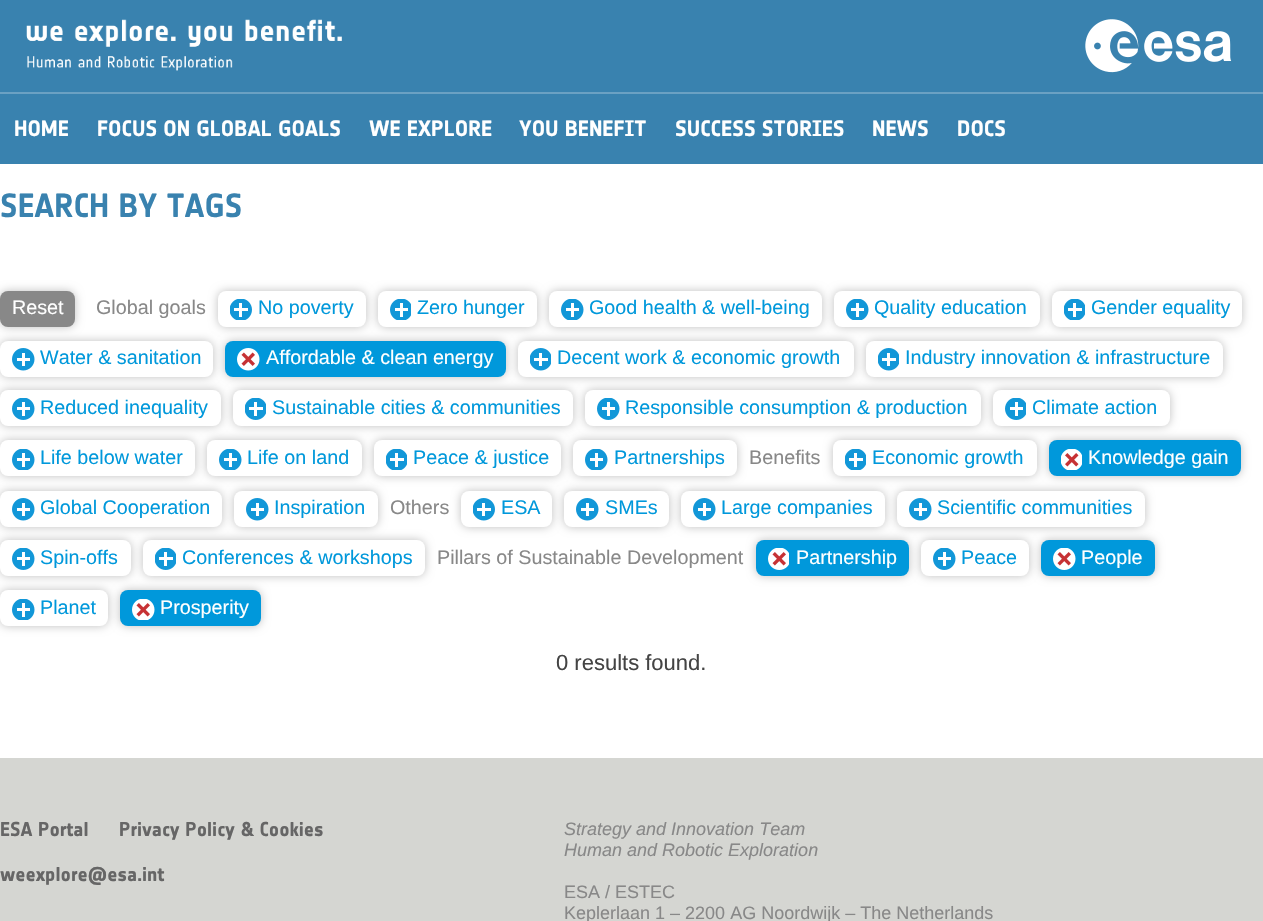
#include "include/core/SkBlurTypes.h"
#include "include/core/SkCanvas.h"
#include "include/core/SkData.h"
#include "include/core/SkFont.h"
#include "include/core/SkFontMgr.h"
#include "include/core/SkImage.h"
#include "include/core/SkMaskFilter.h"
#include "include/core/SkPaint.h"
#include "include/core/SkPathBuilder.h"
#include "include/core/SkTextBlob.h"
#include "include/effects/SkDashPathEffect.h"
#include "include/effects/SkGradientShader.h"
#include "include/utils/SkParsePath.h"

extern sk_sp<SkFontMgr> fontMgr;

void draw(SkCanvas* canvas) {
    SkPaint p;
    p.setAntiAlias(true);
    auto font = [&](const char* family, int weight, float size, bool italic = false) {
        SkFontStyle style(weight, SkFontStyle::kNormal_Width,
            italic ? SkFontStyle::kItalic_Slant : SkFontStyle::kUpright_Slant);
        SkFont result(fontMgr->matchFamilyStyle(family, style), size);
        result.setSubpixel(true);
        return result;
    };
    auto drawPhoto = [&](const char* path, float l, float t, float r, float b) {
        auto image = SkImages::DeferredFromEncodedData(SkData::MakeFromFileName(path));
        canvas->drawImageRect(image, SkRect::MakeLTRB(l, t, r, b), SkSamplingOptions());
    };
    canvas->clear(0xFFFFFFFF);
    p.setColor(0xFF3982AF);
    canvas->drawRect(SkRect::MakeLTRB(0, 0, 1263, 92), p);
    drawPhoto("media/1.png", 26, 19, 342, 71);
    drawPhoto("media/2.png", 1085, 19, 1232, 73);
    canvas->drawRect(SkRect::MakeLTRB(0, 94, 1263, 164), p);
    p.setColor(0xFF6BA1C3);
    canvas->drawRect(SkRect::MakeLTRB(0, 92, 1263, 94), p);
    auto font1 = font("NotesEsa", 700, 22);
    p.setColor(0xFFFFFFFF);
    {
        const struct { const char* s; float x, y; } items[] = {
            {"HOME", 14, 136},
            {"FOCUS ON GLOBAL GOALS", 97, 136},
            {"WE EXPLORE", 369, 136},
            {"YOU BENEFIT", 519, 136},
            {"SUCCESS STORIES", 675, 136},
            {"NEWS", 872, 136},
            {"DOCS", 957, 136},
        };
        for (auto [s, x, y] : items) {
            canvas->drawString(s, x, y, font1, p);
        }
    }
    auto font2 = font("NotesEsa", 700, 33);
    p.setColor(0xFF3982AF);
    canvas->drawString("SEARCH BY TAGS", 0, 217, font2, p);
    p.setColor(0x40000000);
    p.setMaskFilter(SkMaskFilter::MakeBlur(kNormal_SkBlurStyle, 5));
    canvas->drawRoundRect(SkRect::MakeLTRB(0, 291, 75, 327), 8, 8, p);
    p.setMaskFilter(nullptr);
    p.setColor(0xFF888888);
    canvas->drawRoundRect(SkRect::MakeLTRB(0, 291, 75, 327), 8, 8, p);
    auto font3 = font("Liberation Sans", 400, 19.75f);
    p.setColor(0xFFFFFFFF);
    canvas->drawString("Reset", 12, 314, font3, p);
    p.setColor(0xFF888888);
    canvas->drawString("Global goals", 96, 314, font3, p);
    p.setColor(0x40000000);
    p.setMaskFilter(SkMaskFilter::MakeBlur(kNormal_SkBlurStyle, 5));
    canvas->drawRoundRect(SkRect::MakeLTRB(218, 291, 366, 327), 8, 8, p);
    p.setMaskFilter(nullptr);
    p.setColor(0xFFFFFFFF);
    canvas->drawRoundRect(SkRect::MakeLTRB(218, 291, 366, 327), 8, 8, p);
    drawPhoto("media/3.png", 230, 299, 252, 320);
    p.setColor(0xFF0098DB);
    canvas->drawString("No poverty", 258, 314, font3, p);
    p.setColor(0x40000000);
    p.setMaskFilter(SkMaskFilter::MakeBlur(kNormal_SkBlurStyle, 5));
    canvas->drawRoundRect(SkRect::MakeLTRB(378, 291, 537, 327), 8, 8, p);
    p.setMaskFilter(nullptr);
    p.setColor(0xFFFFFFFF);
    canvas->drawRoundRect(SkRect::MakeLTRB(378, 291, 537, 327), 8, 8, p);
    drawPhoto("media/4.png", 390, 299, 411, 320);
    p.setColor(0xFF0098DB);
    canvas->drawString("Zero hunger", 417, 314, font3, p);
    p.setColor(0x40000000);
    p.setMaskFilter(SkMaskFilter::MakeBlur(kNormal_SkBlurStyle, 5));
    canvas->drawRoundRect(SkRect::MakeLTRB(549, 291, 822, 327), 8, 8, p);
    p.setMaskFilter(nullptr);
    p.setColor(0xFFFFFFFF);
    canvas->drawRoundRect(SkRect::MakeLTRB(549, 291, 822, 327), 8, 8, p);
    drawPhoto("media/5.png", 561, 299, 584, 320);
    p.setColor(0xFF0098DB);
    canvas->drawString("Good health & well-being", 589, 314, font3, p);
    p.setColor(0x40000000);
    p.setMaskFilter(SkMaskFilter::MakeBlur(kNormal_SkBlurStyle, 5));
    canvas->drawRoundRect(SkRect::MakeLTRB(834, 291, 1040, 327), 8, 8, p);
    p.setMaskFilter(nullptr);
    p.setColor(0xFFFFFFFF);
    canvas->drawRoundRect(SkRect::MakeLTRB(834, 291, 1040, 327), 8, 8, p);
    drawPhoto("media/5.png", 846, 299, 869, 320);
    p.setColor(0xFF0098DB);
    canvas->drawString("Quality education", 874, 314, font3, p);
    p.setColor(0x40000000);
    p.setMaskFilter(SkMaskFilter::MakeBlur(kNormal_SkBlurStyle, 5));
    canvas->drawRoundRect(SkRect::MakeLTRB(1052, 291, 1242, 327), 8, 8, p);
    p.setMaskFilter(nullptr);
    p.setColor(0xFFFFFFFF);
    canvas->drawRoundRect(SkRect::MakeLTRB(1052, 291, 1242, 327), 8, 8, p);
    drawPhoto("media/6.png", 1064, 299, 1085, 320);
    p.setColor(0xFF0098DB);
    canvas->drawString("Gender equality", 1091, 314, font3, p);
    p.setColor(0x40000000);
    p.setMaskFilter(SkMaskFilter::MakeBlur(kNormal_SkBlurStyle, 5));
    canvas->drawRoundRect(SkRect::MakeLTRB(0, 341, 213, 377), 8, 8, p);
    p.setMaskFilter(nullptr);
    p.setColor(0xFFFFFFFF);
    canvas->drawRoundRect(SkRect::MakeLTRB(0, 341, 213, 377), 8, 8, p);
    drawPhoto("media/7.png", 12, 348, 35, 371);
    p.setColor(0xFF0098DB);
    canvas->drawString("Water & sanitation", 40, 364, font3, p);
    p.setColor(0x40000000);
    p.setMaskFilter(SkMaskFilter::MakeBlur(kNormal_SkBlurStyle, 5));
    canvas->drawRoundRect(SkRect::MakeLTRB(225, 341, 506, 377), 8, 8, p);
    p.setMaskFilter(nullptr);
    p.setColor(0xFF0098DB);
    canvas->drawRoundRect(SkRect::MakeLTRB(225, 341, 506, 377), 8, 8, p);
    drawPhoto("media/8.png", 237, 348, 260, 371);
    p.setColor(0xFFFFFFFF);
    canvas->drawString("Affordable & clean energy", 266, 364, font3, p);
    p.setColor(0x40000000);
    p.setMaskFilter(SkMaskFilter::MakeBlur(kNormal_SkBlurStyle, 5));
    canvas->drawRoundRect(SkRect::MakeLTRB(518, 341, 854, 377), 8, 8, p);
    p.setMaskFilter(nullptr);
    p.setColor(0xFFFFFFFF);
    canvas->drawRoundRect(SkRect::MakeLTRB(518, 341, 854, 377), 8, 8, p);
    drawPhoto("media/9.png", 530, 348, 551, 371);
    p.setColor(0xFF0098DB);
    canvas->drawString("Decent work & economic growth", 557, 364, font3, p);
    p.setColor(0x40000000);
    p.setMaskFilter(SkMaskFilter::MakeBlur(kNormal_SkBlurStyle, 5));
    canvas->drawRoundRect(SkRect::MakeLTRB(866, 341, 1223, 377), 8, 8, p);
    p.setMaskFilter(nullptr);
    p.setColor(0xFFFFFFFF);
    canvas->drawRoundRect(SkRect::MakeLTRB(866, 341, 1223, 377), 8, 8, p);
    drawPhoto("media/9.png", 878, 348, 899, 371);
    p.setColor(0xFF0098DB);
    canvas->drawString("Industry innovation & infrastructure", 905, 364, font3, p);
    p.setColor(0x40000000);
    p.setMaskFilter(SkMaskFilter::MakeBlur(kNormal_SkBlurStyle, 5));
    canvas->drawRoundRect(SkRect::MakeLTRB(0, 390, 221, 426), 8, 8, p);
    p.setMaskFilter(nullptr);
    p.setColor(0xFFFFFFFF);
    canvas->drawRoundRect(SkRect::MakeLTRB(0, 390, 221, 426), 8, 8, p);
    drawPhoto("media/10.png", 12, 398, 35, 420);
    p.setColor(0xFF0098DB);
    canvas->drawString("Reduced inequality", 40, 414, font3, p);
    p.setColor(0x40000000);
    p.setMaskFilter(SkMaskFilter::MakeBlur(kNormal_SkBlurStyle, 5));
    canvas->drawRoundRect(SkRect::MakeLTRB(233, 390, 573, 426), 8, 8, p);
    p.setMaskFilter(nullptr);
    p.setColor(0xFFFFFFFF);
    canvas->drawRoundRect(SkRect::MakeLTRB(233, 390, 573, 426), 8, 8, p);
    drawPhoto("media/11.png", 245, 398, 266, 420);
    p.setColor(0xFF0098DB);
    canvas->drawString("Sustainable cities & communities", 272, 414, font3, p);
    p.setColor(0x40000000);
    p.setMaskFilter(SkMaskFilter::MakeBlur(kNormal_SkBlurStyle, 5));
    canvas->drawRoundRect(SkRect::MakeLTRB(585, 390, 981, 426), 8, 8, p);
    p.setMaskFilter(nullptr);
    p.setColor(0xFFFFFFFF);
    canvas->drawRoundRect(SkRect::MakeLTRB(585, 390, 981, 426), 8, 8, p);
    drawPhoto("media/10.png", 597, 398, 620, 420);
    p.setColor(0xFF0098DB);
    canvas->drawString("Responsible consumption & production", 625, 414, font3, p);
    p.setColor(0x40000000);
    p.setMaskFilter(SkMaskFilter::MakeBlur(kNormal_SkBlurStyle, 5));
    canvas->drawRoundRect(SkRect::MakeLTRB(993, 390, 1170, 426), 8, 8, p);
    p.setMaskFilter(nullptr);
    p.setColor(0xFFFFFFFF);
    canvas->drawRoundRect(SkRect::MakeLTRB(993, 390, 1170, 426), 8, 8, p);
    drawPhoto("media/12.png", 1005, 398, 1026, 420);
    p.setColor(0xFF0098DB);
    canvas->drawString("Climate action", 1032, 414, font3, p);
    p.setColor(0x40000000);
    p.setMaskFilter(SkMaskFilter::MakeBlur(kNormal_SkBlurStyle, 5));
    canvas->drawRoundRect(SkRect::MakeLTRB(0, 440, 195, 476), 8, 8, p);
    p.setMaskFilter(nullptr);
    p.setColor(0xFFFFFFFF);
    canvas->drawRoundRect(SkRect::MakeLTRB(0, 440, 195, 476), 8, 8, p);
    drawPhoto("media/5.png", 12, 449, 35, 470);
    p.setColor(0xFF0098DB);
    canvas->drawString("Life below water", 40, 464, font3, p);
    p.setColor(0x40000000);
    p.setMaskFilter(SkMaskFilter::MakeBlur(kNormal_SkBlurStyle, 5));
    canvas->drawRoundRect(SkRect::MakeLTRB(207, 440, 362, 476), 8, 8, p);
    p.setMaskFilter(nullptr);
    p.setColor(0xFFFFFFFF);
    canvas->drawRoundRect(SkRect::MakeLTRB(207, 440, 362, 476), 8, 8, p);
    drawPhoto("media/5.png", 219, 449, 242, 470);
    p.setColor(0xFF0098DB);
    canvas->drawString("Life on land", 247, 464, font3, p);
    p.setColor(0x40000000);
    p.setMaskFilter(SkMaskFilter::MakeBlur(kNormal_SkBlurStyle, 5));
    canvas->drawRoundRect(SkRect::MakeLTRB(374, 440, 561, 476), 8, 8, p);
    p.setMaskFilter(nullptr);
    p.setColor(0xFFFFFFFF);
    canvas->drawRoundRect(SkRect::MakeLTRB(374, 440, 561, 476), 8, 8, p);
    drawPhoto("media/6.png", 386, 449, 407, 470);
    p.setColor(0xFF0098DB);
    canvas->drawString("Peace & justice", 413, 464, font3, p);
    p.setColor(0x40000000);
    p.setMaskFilter(SkMaskFilter::MakeBlur(kNormal_SkBlurStyle, 5));
    canvas->drawRoundRect(SkRect::MakeLTRB(573, 440, 737, 476), 8, 8, p);
    p.setMaskFilter(nullptr);
    p.setColor(0xFFFFFFFF);
    canvas->drawRoundRect(SkRect::MakeLTRB(573, 440, 737, 476), 8, 8, p);
    drawPhoto("media/5.png", 585, 449, 608, 470);
    p.setColor(0xFF0098DB);
    canvas->drawString("Partnerships", 614, 464, font3, p);
    p.setColor(0xFF888888);
    canvas->drawString("Benefits", 749, 464, font3, p);
    p.setColor(0x40000000);
    p.setMaskFilter(SkMaskFilter::MakeBlur(kNormal_SkBlurStyle, 5));
    canvas->drawRoundRect(SkRect::MakeLTRB(833, 440, 1037, 476), 8, 8, p);
    p.setMaskFilter(nullptr);
    p.setColor(0xFFFFFFFF);
    canvas->drawRoundRect(SkRect::MakeLTRB(833, 440, 1037, 476), 8, 8, p);
    drawPhoto("media/6.png", 845, 449, 866, 470);
    p.setColor(0xFF0098DB);
    canvas->drawString("Economic growth", 872, 464, font3, p);
    p.setColor(0x40000000);
    p.setMaskFilter(SkMaskFilter::MakeBlur(kNormal_SkBlurStyle, 5));
    canvas->drawRoundRect(SkRect::MakeLTRB(1049, 440, 1241, 476), 8, 8, p);
    p.setMaskFilter(nullptr);
    p.setColor(0xFF0098DB);
    canvas->drawRoundRect(SkRect::MakeLTRB(1049, 440, 1241, 476), 8, 8, p);
    drawPhoto("media/13.png", 1061, 449, 1082, 470);
    p.setColor(0xFFFFFFFF);
    canvas->drawString("Knowledge gain", 1088, 464, font3, p);
    p.setColor(0x40000000);
    p.setMaskFilter(SkMaskFilter::MakeBlur(kNormal_SkBlurStyle, 5));
    canvas->drawRoundRect(SkRect::MakeLTRB(0, 491, 222, 527), 8, 8, p);
    p.setMaskFilter(nullptr);
    p.setColor(0xFFFFFFFF);
    canvas->drawRoundRect(SkRect::MakeLTRB(0, 491, 222, 527), 8, 8, p);
    drawPhoto("media/7.png", 12, 498, 35, 521);
    p.setColor(0xFF0098DB);
    canvas->drawString("Global Cooperation", 40, 514, font3, p);
    p.setColor(0x40000000);
    p.setMaskFilter(SkMaskFilter::MakeBlur(kNormal_SkBlurStyle, 5));
    canvas->drawRoundRect(SkRect::MakeLTRB(234, 491, 378, 527), 8, 8, p);
    p.setMaskFilter(nullptr);
    p.setColor(0xFFFFFFFF);
    canvas->drawRoundRect(SkRect::MakeLTRB(234, 491, 378, 527), 8, 8, p);
    drawPhoto("media/7.png", 246, 498, 269, 521);
    p.setColor(0xFF0098DB);
    canvas->drawString("Inspiration", 274, 514, font3, p);
    p.setColor(0xFF888888);
    canvas->drawString("Others", 390, 514, font3, p);
    p.setColor(0x40000000);
    p.setMaskFilter(SkMaskFilter::MakeBlur(kNormal_SkBlurStyle, 5));
    canvas->drawRoundRect(SkRect::MakeLTRB(461, 491, 552, 527), 8, 8, p);
    p.setMaskFilter(nullptr);
    p.setColor(0xFFFFFFFF);
    canvas->drawRoundRect(SkRect::MakeLTRB(461, 491, 552, 527), 8, 8, p);
    drawPhoto("media/14.png", 473, 498, 495, 521);
    p.setColor(0xFF0098DB);
    canvas->drawString("ESA", 501, 514, font3, p);
    p.setColor(0x40000000);
    p.setMaskFilter(SkMaskFilter::MakeBlur(kNormal_SkBlurStyle, 5));
    canvas->drawRoundRect(SkRect::MakeLTRB(564, 491, 669, 527), 8, 8, p);
    p.setMaskFilter(nullptr);
    p.setColor(0xFFFFFFFF);
    canvas->drawRoundRect(SkRect::MakeLTRB(564, 491, 669, 527), 8, 8, p);
    drawPhoto("media/7.png", 576, 498, 599, 521);
    p.setColor(0xFF0098DB);
    canvas->drawString("SMEs", 605, 514, font3, p);
    p.setColor(0x40000000);
    p.setMaskFilter(SkMaskFilter::MakeBlur(kNormal_SkBlurStyle, 5));
    canvas->drawRoundRect(SkRect::MakeLTRB(681, 491, 885, 527), 8, 8, p);
    p.setMaskFilter(nullptr);
    p.setColor(0xFFFFFFFF);
    canvas->drawRoundRect(SkRect::MakeLTRB(681, 491, 885, 527), 8, 8, p);
    drawPhoto("media/7.png", 693, 498, 716, 521);
    p.setColor(0xFF0098DB);
    canvas->drawString("Large companies", 721, 514, font3, p);
    p.setColor(0x40000000);
    p.setMaskFilter(SkMaskFilter::MakeBlur(kNormal_SkBlurStyle, 5));
    canvas->drawRoundRect(SkRect::MakeLTRB(897, 491, 1145, 527), 8, 8, p);
    p.setMaskFilter(nullptr);
    p.setColor(0xFFFFFFFF);
    canvas->drawRoundRect(SkRect::MakeLTRB(897, 491, 1145, 527), 8, 8, p);
    drawPhoto("media/7.png", 909, 498, 932, 521);
    p.setColor(0xFF0098DB);
    canvas->drawString("Scientific communities", 937, 514, font3, p);
    p.setColor(0x40000000);
    p.setMaskFilter(SkMaskFilter::MakeBlur(kNormal_SkBlurStyle, 5));
    canvas->drawRoundRect(SkRect::MakeLTRB(0, 540, 131, 576), 8, 8, p);
    p.setMaskFilter(nullptr);
    p.setColor(0xFFFFFFFF);
    canvas->drawRoundRect(SkRect::MakeLTRB(0, 540, 131, 576), 8, 8, p);
    drawPhoto("media/10.png", 12, 548, 35, 570);
    p.setColor(0xFF0098DB);
    canvas->drawString("Spin-offs", 40, 564, font3, p);
    p.setColor(0x40000000);
    p.setMaskFilter(SkMaskFilter::MakeBlur(kNormal_SkBlurStyle, 5));
    canvas->drawRoundRect(SkRect::MakeLTRB(143, 540, 425, 576), 8, 8, p);
    p.setMaskFilter(nullptr);
    p.setColor(0xFFFFFFFF);
    canvas->drawRoundRect(SkRect::MakeLTRB(143, 540, 425, 576), 8, 8, p);
    drawPhoto("media/11.png", 155, 548, 176, 570);
    p.setColor(0xFF0098DB);
    canvas->drawString("Conferences & workshops", 182, 564, font3, p);
    p.setColor(0xFF888888);
    canvas->drawString("Pillars of Sustainable Development", 437, 564, font3, p);
    p.setColor(0x40000000);
    p.setMaskFilter(SkMaskFilter::MakeBlur(kNormal_SkBlurStyle, 5));
    canvas->drawRoundRect(SkRect::MakeLTRB(756, 540, 909, 576), 8, 8, p);
    p.setMaskFilter(nullptr);
    p.setColor(0xFF0098DB);
    canvas->drawRoundRect(SkRect::MakeLTRB(756, 540, 909, 576), 8, 8, p);
    drawPhoto("media/15.png", 768, 548, 789, 570);
    p.setColor(0xFFFFFFFF);
    canvas->drawString("Partnership", 796, 564, font3, p);
    p.setColor(0x40000000);
    p.setMaskFilter(SkMaskFilter::MakeBlur(kNormal_SkBlurStyle, 5));
    canvas->drawRoundRect(SkRect::MakeLTRB(921, 540, 1029, 576), 8, 8, p);
    p.setMaskFilter(nullptr);
    p.setColor(0xFFFFFFFF);
    canvas->drawRoundRect(SkRect::MakeLTRB(921, 540, 1029, 576), 8, 8, p);
    drawPhoto("media/10.png", 933, 548, 956, 570);
    p.setColor(0xFF0098DB);
    canvas->drawString("Peace", 961, 564, font3, p);
    p.setColor(0x40000000);
    p.setMaskFilter(SkMaskFilter::MakeBlur(kNormal_SkBlurStyle, 5));
    canvas->drawRoundRect(SkRect::MakeLTRB(1041, 540, 1155, 576), 8, 8, p);
    p.setMaskFilter(nullptr);
    p.setColor(0xFF0098DB);
    canvas->drawRoundRect(SkRect::MakeLTRB(1041, 540, 1155, 576), 8, 8, p);
    drawPhoto("media/16.png", 1053, 548, 1076, 570);
    p.setColor(0xFFFFFFFF);
    canvas->drawString("People", 1081, 564, font3, p);
    p.setColor(0x40000000);
    p.setMaskFilter(SkMaskFilter::MakeBlur(kNormal_SkBlurStyle, 5));
    canvas->drawRoundRect(SkRect::MakeLTRB(0, 590, 108, 626), 8, 8, p);
    p.setMaskFilter(nullptr);
    p.setColor(0xFFFFFFFF);
    canvas->drawRoundRect(SkRect::MakeLTRB(0, 590, 108, 626), 8, 8, p);
    drawPhoto("media/5.png", 12, 599, 35, 620);
    p.setColor(0xFF0098DB);
    canvas->drawString("Planet", 40, 614, font3, p);
    p.setColor(0x40000000);
    p.setMaskFilter(SkMaskFilter::MakeBlur(kNormal_SkBlurStyle, 5));
    canvas->drawRoundRect(SkRect::MakeLTRB(120, 590, 261, 626), 8, 8, p);
    p.setMaskFilter(nullptr);
    p.setColor(0xFF0098DB);
    canvas->drawRoundRect(SkRect::MakeLTRB(120, 590, 261, 626), 8, 8, p);
    drawPhoto("media/17.png", 132, 599, 155, 620);
    p.setColor(0xFFFFFFFF);
    canvas->drawString("Prosperity", 160, 614, font3, p);
    auto font4 = font("Liberation Sans", 400, 22);
    p.setColor(0xFF444444);
    canvas->drawString("0 results found.", 556, 670, font4, p);
    p.setColor(0xFFD5D6D2);
    canvas->drawRect(SkRect::MakeLTRB(0, 758, 1263, 921), p);
    auto font5 = font("NotesEsa", 700, 19.75f);
    p.setColor(0xFF666666);
    {
        const struct { const char* s; float x, y; } items[] = {
            {"ESA Portal", 0, 836},
            {"Privacy Policy & Cookies", 119, 836},
            {"weexplore@esa.int", 0, 881},
        };
        for (auto [s, x, y] : items) {
            canvas->drawString(s, x, y, font5, p);
        }
    }
    auto font6 = font("Liberation Sans", 400, 18, true);
    p.setColor(0xFF888888);
    canvas->drawString("Strategy and Innovation Team", 564, 835, font6, p);
    canvas->drawString("Human and Robotic Exploration", 564, 856, font6, p);
    auto font7 = font("Liberation Sans", 400, 18);
    canvas->drawString("ESA / ESTEC", 564, 898, font7, p);
    canvas->drawString("Keplerlaan 1 – 2200 AG Noordwijk – The Netherlands", 564, 919, font7, p);
}
